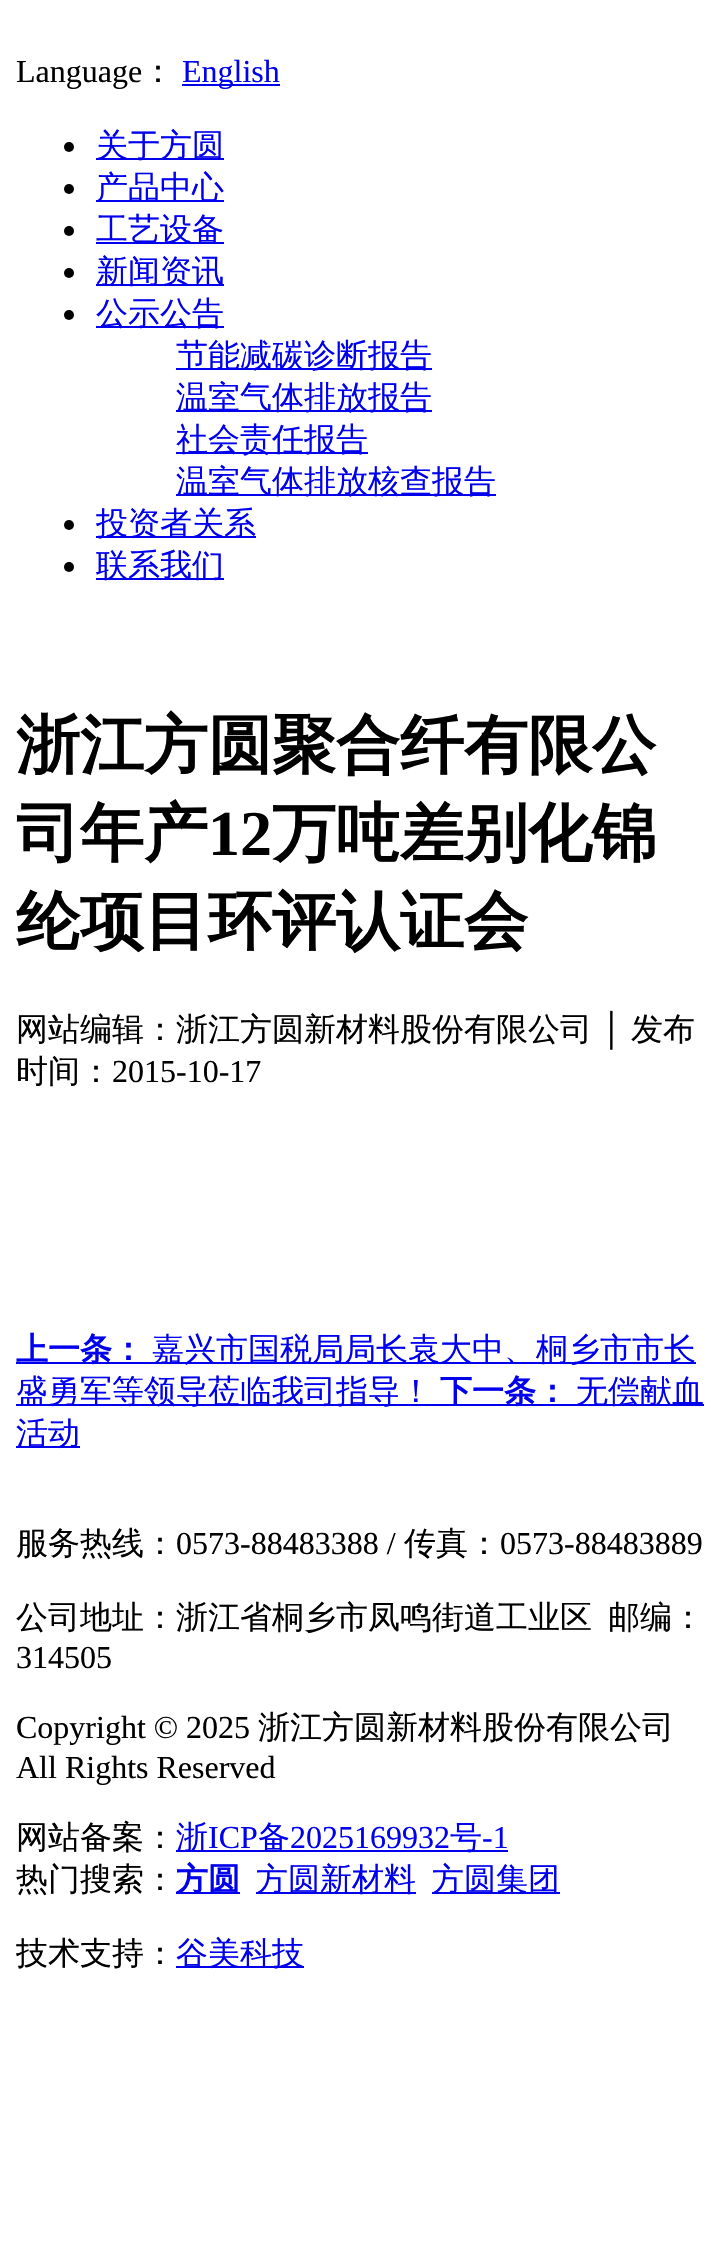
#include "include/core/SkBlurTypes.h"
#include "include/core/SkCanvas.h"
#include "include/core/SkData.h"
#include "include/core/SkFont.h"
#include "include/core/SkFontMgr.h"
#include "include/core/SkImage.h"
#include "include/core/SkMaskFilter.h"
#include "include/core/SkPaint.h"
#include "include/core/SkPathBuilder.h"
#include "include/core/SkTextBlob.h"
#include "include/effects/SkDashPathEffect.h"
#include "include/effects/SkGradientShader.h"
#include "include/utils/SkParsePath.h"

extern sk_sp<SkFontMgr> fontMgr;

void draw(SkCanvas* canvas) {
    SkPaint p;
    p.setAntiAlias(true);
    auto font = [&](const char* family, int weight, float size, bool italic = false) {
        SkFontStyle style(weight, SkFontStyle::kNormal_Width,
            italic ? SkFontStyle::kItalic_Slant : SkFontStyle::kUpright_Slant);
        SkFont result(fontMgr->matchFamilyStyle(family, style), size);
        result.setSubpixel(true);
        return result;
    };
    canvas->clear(0xFFFFFFFF);
    auto font1 = font("Liberation Serif", 400, 32);
    p.setColor(0xFF000000);
    canvas->drawString("Language", 16, 82, font1, p);
    auto font2 = font("WenQuanYi Zen Hei", 500, 32);
    canvas->drawString("：", 142, 82, font2, p);
    p.setColor(0xFF0000EE);
    canvas->drawRect(SkRect::MakeLTRB(182, 84, 280, 86), p);
    canvas->drawString("English", 182, 82, font1, p);
    p.setColor(0xFF000000);
    canvas->drawCircle(69, 147, 5, p);
    p.setColor(0xFF0000EE);
    canvas->drawRect(SkRect::MakeLTRB(96, 158, 224, 160), p);
    canvas->drawString("关于方圆", 96, 156, font2, p);
    p.setColor(0xFF000000);
    canvas->drawCircle(69, 189, 5, p);
    p.setColor(0xFF0000EE);
    canvas->drawRect(SkRect::MakeLTRB(96, 200, 224, 202), p);
    canvas->drawString("产品中心", 96, 198, font2, p);
    p.setColor(0xFF000000);
    canvas->drawCircle(69, 231, 5, p);
    p.setColor(0xFF0000EE);
    canvas->drawRect(SkRect::MakeLTRB(96, 242, 224, 244), p);
    canvas->drawString("工艺设备", 96, 240, font2, p);
    p.setColor(0xFF000000);
    canvas->drawCircle(69, 273, 5, p);
    p.setColor(0xFF0000EE);
    canvas->drawRect(SkRect::MakeLTRB(96, 284, 224, 286), p);
    canvas->drawString("新闻资讯", 96, 282, font2, p);
    p.setColor(0xFF000000);
    canvas->drawCircle(69, 315, 5, p);
    p.setColor(0xFF0000EE);
    canvas->drawRect(SkRect::MakeLTRB(96, 326, 224, 328), p);
    canvas->drawString("公示公告", 96, 324, font2, p);
    canvas->drawRect(SkRect::MakeLTRB(176, 368, 432, 370), p);
    canvas->drawString("节能减碳诊断报告", 176, 366, font2, p);
    canvas->drawRect(SkRect::MakeLTRB(176, 410, 432, 412), p);
    canvas->drawString("温室气体排放报告", 176, 408, font2, p);
    canvas->drawRect(SkRect::MakeLTRB(176, 452, 368, 454), p);
    canvas->drawString("社会责任报告", 176, 450, font2, p);
    canvas->drawRect(SkRect::MakeLTRB(176, 494, 496, 496), p);
    canvas->drawString("温室气体排放核查报告", 176, 492, font2, p);
    p.setColor(0xFF000000);
    canvas->drawCircle(69, 525, 5, p);
    p.setColor(0xFF0000EE);
    canvas->drawRect(SkRect::MakeLTRB(96, 536, 256, 538), p);
    canvas->drawString("投资者关系", 96, 534, font2, p);
    p.setColor(0xFF000000);
    canvas->drawCircle(69, 567, 5, p);
    p.setColor(0xFF0000EE);
    canvas->drawRect(SkRect::MakeLTRB(96, 578, 224, 580), p);
    canvas->drawString("联系我们", 96, 576, font2, p);
    auto font3 = font("WenQuanYi Zen Hei", 700, 64);
    p.setColor(0xFF000000);
    canvas->drawString("浙江方圆聚合纤有限公", 16, 767, font3, p);
    canvas->drawString("司年产", 16, 855, font3, p);
    auto font4 = font("Liberation Serif", 700, 64);
    canvas->drawString("12", 208, 855, font4, p);
    canvas->drawString("万吨差别化锦", 272, 855, font3, p);
    canvas->drawString("纶项目环评认证会", 16, 943, font3, p);
    canvas->drawString("网站编辑：浙江方圆新材料股份有限公司", 16, 1040, font2, p);
    canvas->drawString("│", 600, 1040, font1, p);
    canvas->drawString("发布", 631, 1040, font2, p);
    canvas->drawString("时间：", 16, 1082, font2, p);
    canvas->drawString("2015-10-17", 112, 1082, font1, p);
    p.setColor(0xFF0000EE);
    canvas->drawRect(SkRect::MakeLTRB(16, 1362, 696, 1364), p);
    auto font5 = font("WenQuanYi Zen Hei", 700, 32);
    canvas->drawString("上一条：", 16, 1360, font5, p);
    canvas->drawString("嘉兴市国税局局长袁大中、桐乡市市长", 152, 1360, font2, p);
    canvas->drawRect(SkRect::MakeLTRB(16, 1404, 704, 1406), p);
    canvas->drawString("盛勇军等领导莅临我司指导！", 16, 1402, font2, p);
    canvas->drawString("下一条：", 440, 1402, font5, p);
    canvas->drawString("无偿献血", 576, 1402, font2, p);
    canvas->drawRect(SkRect::MakeLTRB(16, 1446, 80, 1448), p);
    canvas->drawString("活动", 16, 1444, font2, p);
    p.setColor(0xFF000000);
    canvas->drawString("服务热线：", 16, 1554, font2, p);
    canvas->drawString("0573-88483388 /", 176, 1554, font1, p);
    canvas->drawString("传真：", 404, 1554, font2, p);
    canvas->drawString("0573-88483889", 500, 1554, font1, p);
    canvas->drawString("公司地址：浙江省桐乡市凤鸣街道工业区", 16, 1628, font2, p);
    canvas->drawString("邮编：", 608, 1628, font2, p);
    canvas->drawString("314505", 16, 1668, font1, p);
    canvas->drawString("Copyright © 2025", 16, 1738, font1, p);
    canvas->drawString("浙江方圆新材料股份有限公司", 258, 1738, font2, p);
    canvas->drawString("All Rights Reserved", 16, 1778, font1, p);
    canvas->drawString("网站备案：", 16, 1848, font2, p);
    p.setColor(0xFF0000EE);
    canvas->drawRect(SkRect::MakeLTRB(176, 1850, 508, 1852), p);
    canvas->drawString("浙", 176, 1848, font2, p);
    canvas->drawString("ICP", 208, 1848, font1, p);
    canvas->drawString("备", 258, 1848, font2, p);
    canvas->drawString("2025169932", 290, 1848, font1, p);
    canvas->drawString("号", 450, 1848, font2, p);
    canvas->drawString("-1", 482, 1848, font1, p);
    p.setColor(0xFF000000);
    canvas->drawString("热门搜索：", 16, 1890, font2, p);
    p.setColor(0xFF0000EE);
    canvas->drawRect(SkRect::MakeLTRB(176, 1892, 240, 1894), p);
    canvas->drawString("方圆", 176, 1890, font5, p);
    canvas->drawRect(SkRect::MakeLTRB(256, 1892, 416, 1894), p);
    canvas->drawString("方圆新材料", 256, 1890, font2, p);
    canvas->drawRect(SkRect::MakeLTRB(432, 1892, 560, 1894), p);
    canvas->drawString("方圆集团", 432, 1890, font2, p);
    p.setColor(0xFF000000);
    canvas->drawString("技术支持：", 16, 1964, font2, p);
    p.setColor(0xFF0000EE);
    canvas->drawRect(SkRect::MakeLTRB(176, 1966, 304, 1968), p);
    canvas->drawString("谷美科技", 176, 1964, font2, p);
}
